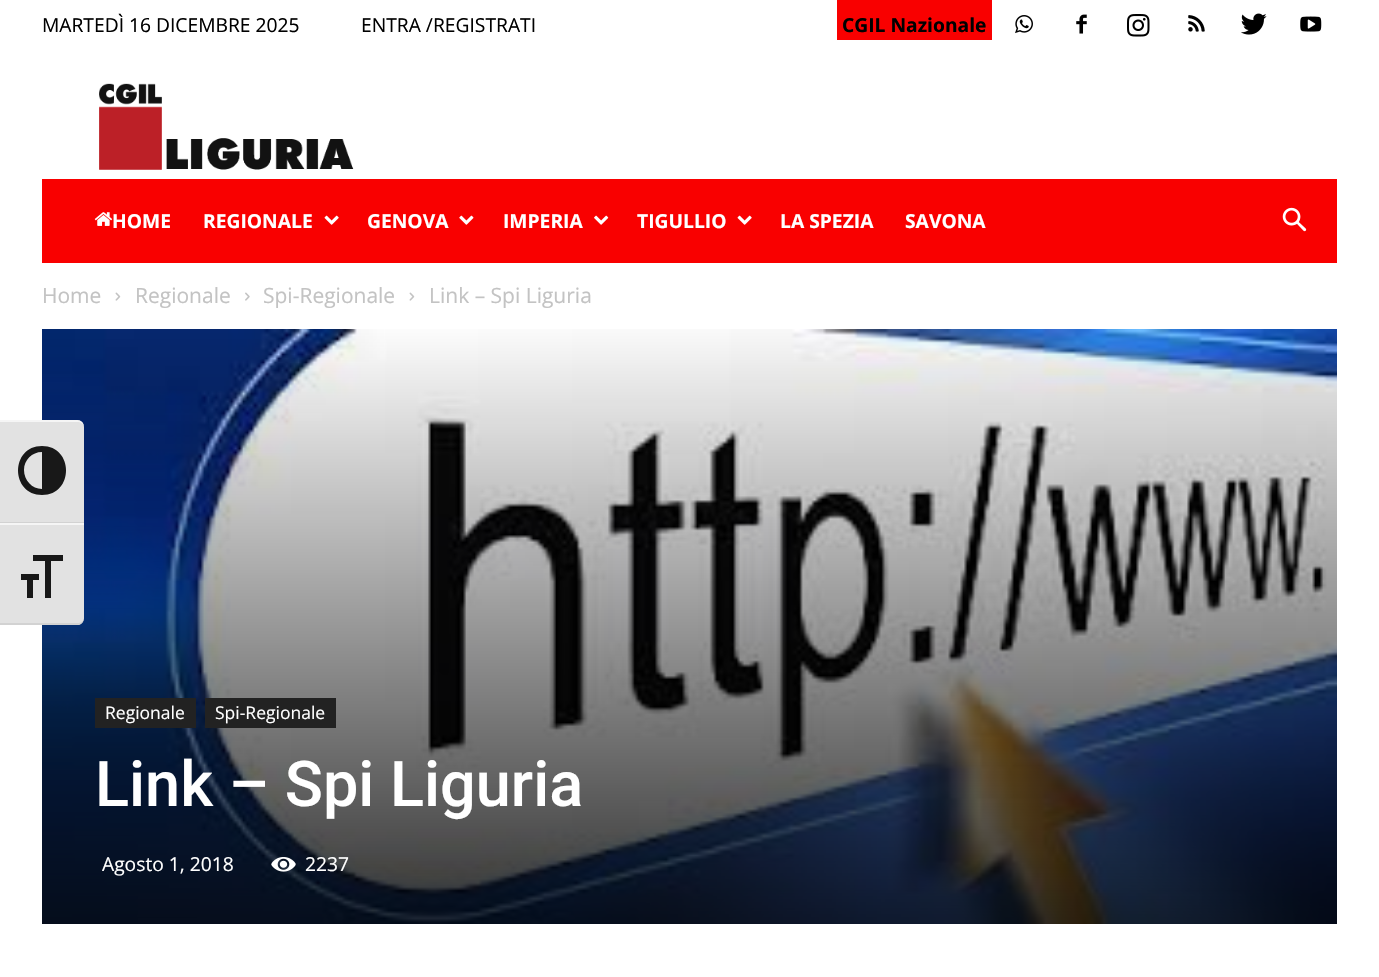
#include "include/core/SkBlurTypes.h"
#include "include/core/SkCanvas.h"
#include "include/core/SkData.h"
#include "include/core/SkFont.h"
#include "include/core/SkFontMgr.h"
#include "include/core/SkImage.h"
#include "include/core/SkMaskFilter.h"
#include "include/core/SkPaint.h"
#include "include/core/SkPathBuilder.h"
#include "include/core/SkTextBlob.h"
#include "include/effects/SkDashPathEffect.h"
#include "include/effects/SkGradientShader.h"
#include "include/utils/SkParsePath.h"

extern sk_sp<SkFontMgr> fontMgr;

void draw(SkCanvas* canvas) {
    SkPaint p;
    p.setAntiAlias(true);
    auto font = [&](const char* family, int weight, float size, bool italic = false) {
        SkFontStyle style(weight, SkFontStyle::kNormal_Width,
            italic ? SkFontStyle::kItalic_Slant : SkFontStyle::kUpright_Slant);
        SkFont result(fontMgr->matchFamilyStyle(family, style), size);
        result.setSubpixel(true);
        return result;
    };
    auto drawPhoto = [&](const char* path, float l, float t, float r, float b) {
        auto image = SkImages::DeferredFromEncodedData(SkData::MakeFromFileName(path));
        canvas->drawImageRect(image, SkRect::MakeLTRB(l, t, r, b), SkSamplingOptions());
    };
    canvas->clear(0xFFFFFFFF);
    drawPhoto("media/15.png", 42, 329, 1337, 924);
    p.setColor(0xFFE2E2E2);
    canvas->drawPath(SkPathBuilder().moveTo(0, 420).lineTo(77, 420).cubicTo(81, 420, 84, 423, 84, 427).lineTo(84, 523).lineTo(0, 523).close().detach(), p);
    p.setColor(0xFFF5F5F5);
    canvas->drawPath(SkPathBuilder().moveTo(0, 420).lineTo(0, 422).lineTo(77, 422).cubicTo(81, 422, 84, 424, 84, 427).cubicTo(84, 423, 81, 420, 77, 420).close().detach(), p);
    p.setColor(0xFFD2D2D2);
    canvas->drawRect(SkRect::MakeLTRB(0, 522, 84, 523), p);
    p.setColor(0xFF181818);
    canvas->drawPath(SkPathBuilder().moveTo(42, 446).cubicTo(10, 446, 10, 495, 42, 495).cubicTo(74, 495, 74, 446, 42, 446).close().moveTo(24, 470).cubicTo(24, 460, 32, 452, 42, 452).lineTo(42, 489).cubicTo(32, 489, 24, 480, 24, 470).close().detach(), p);
    p.setColor(0xFFE2E2E2);
    canvas->drawPath(SkPathBuilder().moveTo(0, 523).lineTo(84, 523).lineTo(84, 618).cubicTo(84, 622, 81, 625, 77, 625).lineTo(0, 625).close().detach(), p);
    p.setColor(0xFFF5F5F5);
    canvas->drawRect(SkRect::MakeLTRB(0, 523, 84, 525), p);
    p.setColor(0xFFD2D2D2);
    canvas->drawPath(SkPathBuilder().moveTo(79, 625).cubicTo(82, 624, 84, 621, 84, 618).cubicTo(84, 621, 81, 623, 77, 623).lineTo(0, 623).lineTo(0, 625).close().detach(), p);
    p.setColor(0xFF181818);
    canvas->drawPath(SkPathBuilder().moveTo(21, 574).lineTo(39, 574).lineTo(39, 580).lineTo(33, 580).lineTo(33, 598).lineTo(27, 598).lineTo(27, 580).lineTo(21, 580).close().moveTo(63, 561).lineTo(51, 561).lineTo(51, 598).lineTo(45, 598).lineTo(45, 561).lineTo(33, 561).lineTo(33, 555).lineTo(63, 555).close().detach(), p);
    auto font1 = font("Open Sans", 400, 19.25f);
    p.setColor(0xFF000000);
    canvas->drawString("MARTEDÌ 16 DICEMBRE 2025", 42, 32, font1, p);
    canvas->drawString("ENTRA /REGISTRATI", 361, 32, font1, p);
    p.setColor(0xFFF90000);
    canvas->drawRect(SkRect::MakeLTRB(837, 0, 992, 40), p);
    auto font2 = font("Open Sans", 700, 19.25f);
    p.setColor(0xFF000000);
    canvas->drawString("CGIL Nazionale", 842, 32, font2, p);
    drawPhoto("media/1.png", 1015, 15, 1033, 34);
    drawPhoto("media/2.png", 1076, 14, 1087, 34);
    drawPhoto("media/3.png", 1127, 14, 1150, 37);
    drawPhoto("media/4.png", 1188, 15, 1205, 32);
    drawPhoto("media/5.png", 1241, 13, 1267, 35);
    drawPhoto("media/6.png", 1300, 16, 1322, 32);
    drawPhoto("media/7.png", 99, 83, 354, 170);
    p.setColor(0xFFF90000);
    canvas->drawRect(SkRect::MakeLTRB(42, 179, 1337, 263), p);
    drawPhoto("media/8.png", 94, 212, 113, 226);
    p.setColor(0xFFFFFFFF);
    canvas->drawString("HOME", 112, 228, font2, p);
    canvas->drawString("REGIONALE", 203, 228, font2, p);
    drawPhoto("media/9.png", 324, 215, 339, 225);
    canvas->drawString("GENOVA", 367, 228, font2, p);
    drawPhoto("media/10.png", 459, 215, 474, 225);
    canvas->drawString("IMPERIA", 503, 228, font2, p);
    drawPhoto("media/11.png", 594, 215, 609, 225);
    canvas->drawString("TIGULLIO", 637, 228, font2, p);
    drawPhoto("media/9.png", 737, 215, 752, 225);
    canvas->drawString("LA SPEZIA", 780, 228, font2, p);
    canvas->drawString("SAVONA", 905, 228, font2, p);
    drawPhoto("media/12.png", 1282, 207, 1307, 232);
    auto font3 = font("Open Sans", 400, 21);
    p.setColor(0xFFC3C3C3);
    canvas->drawString("Home", 42, 303, font3, p);
    drawPhoto("media/13.png", 115, 292, 121, 301);
    canvas->drawString("Regionale", 135, 303, font3, p);
    drawPhoto("media/14.png", 245, 292, 250, 301);
    canvas->drawString("Spi-Regionale", 263, 303, font3, p);
    drawPhoto("media/13.png", 409, 292, 415, 301);
    canvas->drawString("Link – Spi Liguria", 429, 303, font3, p);
    p.setColor(0xFF222222);
    canvas->drawRect(SkRect::MakeLTRB(95, 698, 196, 728), p);
    auto font4 = font("Open Sans", 400, 17.5f);
    p.setColor(0xFFFFFFFF);
    canvas->drawString("Regionale", 105, 719, font4, p);
    p.setColor(0xFF222222);
    canvas->drawRect(SkRect::MakeLTRB(205, 698, 336, 728), p);
    p.setColor(0xFFFFFFFF);
    canvas->drawString("Spi-Regionale", 215, 719, font4, p);
    auto font5 = font("Roboto", 500, 63);
    canvas->drawString("Link – Spi Liguria", 95, 806, font5, p);
    canvas->drawString("Agosto 1, 2018", 102, 871, font1, p);
    drawPhoto("media/16.png", 271, 857, 296, 872);
    canvas->drawString("2237", 305, 871, font1, p);
}
